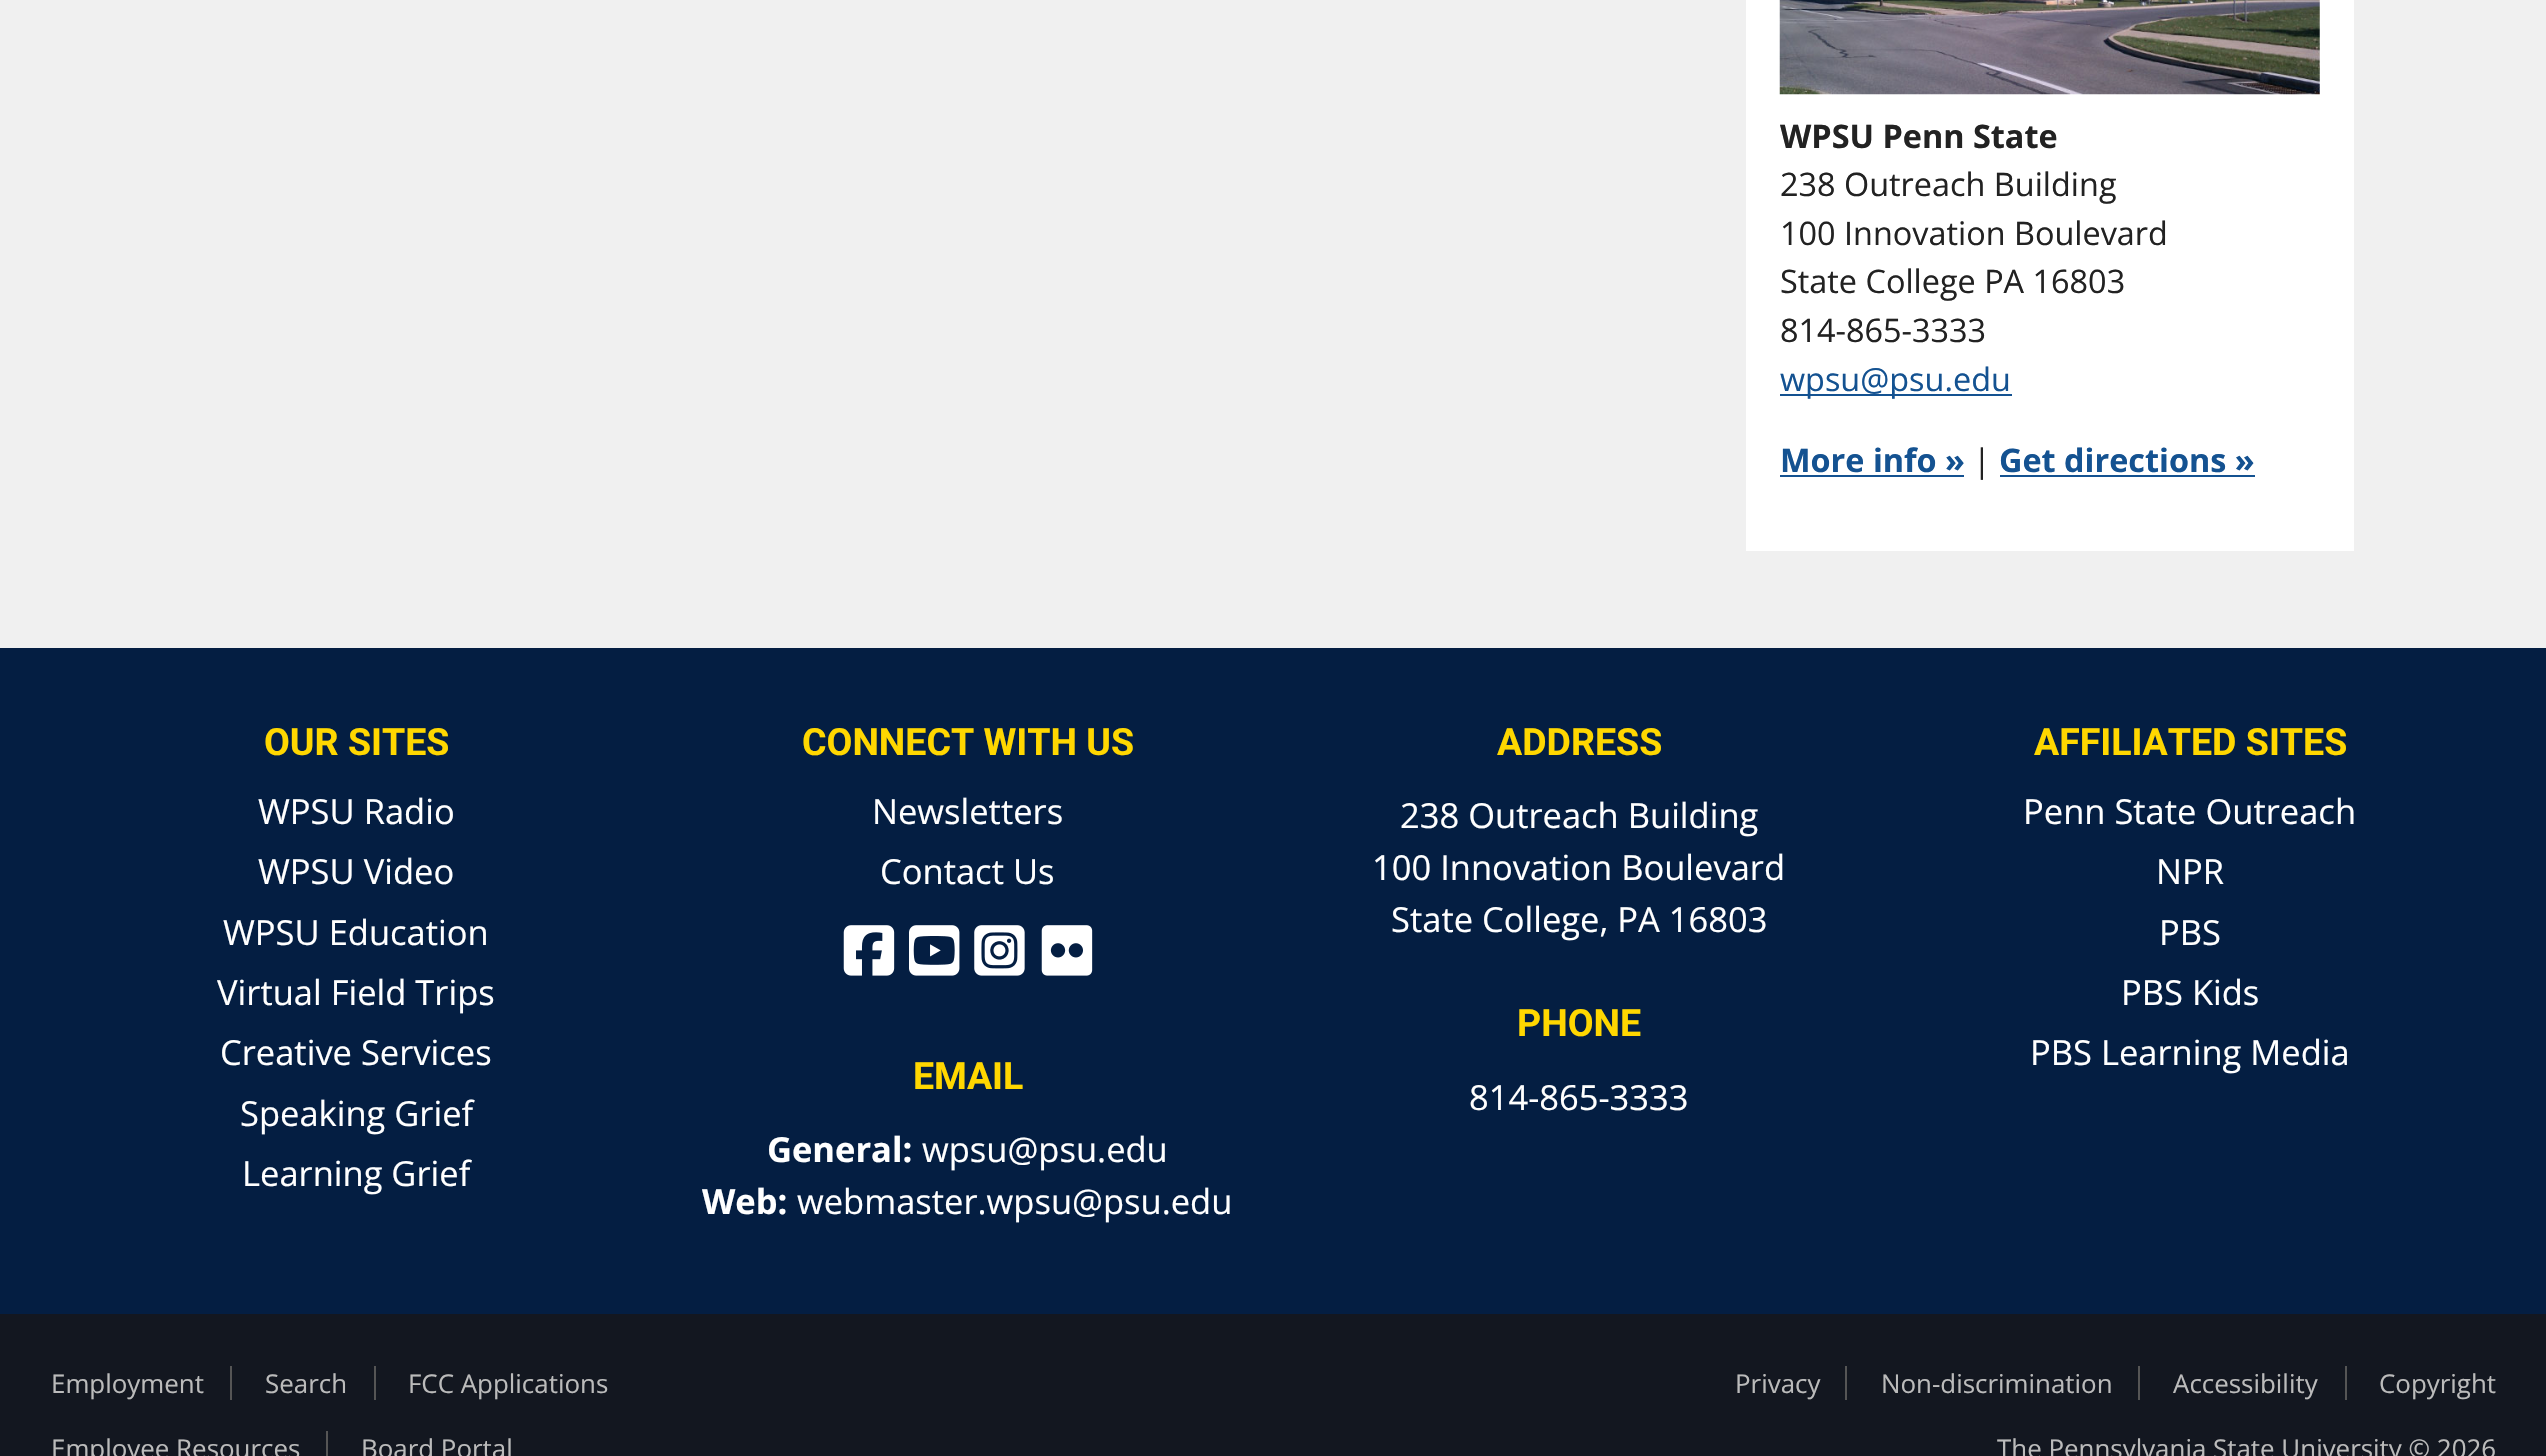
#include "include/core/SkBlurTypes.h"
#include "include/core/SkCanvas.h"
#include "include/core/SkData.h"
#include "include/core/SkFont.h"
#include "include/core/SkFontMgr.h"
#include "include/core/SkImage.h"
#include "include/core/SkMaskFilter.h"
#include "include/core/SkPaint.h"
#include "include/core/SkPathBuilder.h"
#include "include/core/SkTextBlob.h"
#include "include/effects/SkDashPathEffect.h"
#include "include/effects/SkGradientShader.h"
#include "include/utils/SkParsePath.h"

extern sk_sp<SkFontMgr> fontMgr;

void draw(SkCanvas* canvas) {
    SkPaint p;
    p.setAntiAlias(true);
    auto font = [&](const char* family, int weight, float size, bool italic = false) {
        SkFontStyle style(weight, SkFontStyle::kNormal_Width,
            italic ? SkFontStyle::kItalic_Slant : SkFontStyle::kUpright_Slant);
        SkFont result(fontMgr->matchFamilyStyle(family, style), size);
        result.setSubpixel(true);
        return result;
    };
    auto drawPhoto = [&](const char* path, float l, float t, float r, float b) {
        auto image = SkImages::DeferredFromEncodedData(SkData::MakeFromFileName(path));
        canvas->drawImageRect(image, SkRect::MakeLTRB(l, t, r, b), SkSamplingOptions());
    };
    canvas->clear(0xFFF0F0F0);
    p.setColor(0xFFFFFFFF);
    canvas->drawRect(SkRect::MakeLTRB(1746, 0, 2354, 551), p);
    drawPhoto("media/1.png", 1779, 0, 2320, 95);
    auto font1 = font("Open Sans", 700, 32.4f);
    p.setColor(0xFF222222);
    canvas->drawString("WPSU Penn State", 1780, 148, font1, p);
    auto font2 = font("Open Sans", 400, 32.4f);
    {
        const struct { const char* s; float x, y; } items[] = {
            {"238 Outreach Building", 1780, 196},
            {"100 Innovation Boulevard", 1780, 245},
            {"State College PA 16803", 1780, 293},
            {"814-865-3333", 1780, 342},
        };
        for (auto [s, x, y] : items) {
            canvas->drawString(s, x, y, font2, p);
        }
    }
    p.setColor(0xFF145291);
    canvas->drawRect(SkRect::MakeLTRB(1780, 394, 2012, 396), p);
    canvas->drawString("wpsu@psu.edu", 1780, 391, font2, p);
    canvas->drawString("More info »", 1780, 472, font1, p);
    canvas->drawRect(SkRect::MakeLTRB(1780, 475, 1964, 477), p);
    p.setColor(0xFF222222);
    canvas->drawString("|", 1973, 472, font2, p);
    p.setColor(0xFF145291);
    canvas->drawString("Get directions »", 1999, 472, font1, p);
    canvas->drawRect(SkRect::MakeLTRB(2000, 475, 2255, 477), p);
    p.setColor(0xFF041E42);
    canvas->drawRect(SkRect::MakeLTRB(0, 648, 2546, 1314), p);
    auto font3 = font("Roboto", 700, 37.5f);
    p.setColor(0xFFFFD700);
    canvas->drawString("OUR SITES", 264, 755, font3, p);
    auto font4 = font("Open Sans", 400, 34.5f);
    p.setColor(0xFFFFFFFF);
    {
        const struct { const char* s; float x, y; } items[] = {
            {"WPSU Radio", 258, 824},
            {"WPSU Video", 258, 884},
            {"WPSU Education", 223, 945},
            {"Virtual Field Trips", 217, 1005},
            {"Creative Services", 220, 1065},
            {"Speaking Grief", 240, 1126},
            {"Learning Grief", 242, 1186},
        };
        for (auto [s, x, y] : items) {
            canvas->drawString(s, x, y, font4, p);
        }
    }
    p.setColor(0xFFFFD700);
    canvas->drawString("CONNECT WITH US", 802, 755, font3, p);
    p.setColor(0xFFFFFFFF);
    canvas->drawString("Newsletters", 872, 824, font4, p);
    canvas->drawString("Contact Us", 880, 884, font4, p);
    drawPhoto("media/2.png", 843, 925, 895, 976);
    drawPhoto("media/3.png", 909, 925, 960, 976);
    drawPhoto("media/4.png", 974, 925, 1025, 976);
    drawPhoto("media/5.png", 1041, 925, 1093, 976);
    p.setColor(0xFFFFD700);
    canvas->drawString("EMAIL", 913, 1089, font3, p);
    auto font5 = font("Open Sans", 700, 34.5f);
    p.setColor(0xFFFFFFFF);
    canvas->drawString("General:", 767, 1162, font5, p);
    canvas->drawString("wpsu@psu.edu", 922, 1162, font4, p);
    canvas->drawString("Web:", 702, 1214, font5, p);
    canvas->drawString("webmaster.wpsu@psu.edu", 797, 1214, font4, p);
    p.setColor(0xFFFFD700);
    canvas->drawString("ADDRESS", 1497, 755, font3, p);
    p.setColor(0xFFFFFFFF);
    {
        const struct { const char* s; float x, y; } items[] = {
            {"238 Outreach Building", 1400, 828},
            {"100 Innovation Boulevard", 1372, 880},
            {"State College, PA 16803", 1391, 932},
        };
        for (auto [s, x, y] : items) {
            canvas->drawString(s, x, y, font4, p);
        }
    }
    p.setColor(0xFFFFD700);
    canvas->drawString("PHONE", 1517, 1036, font3, p);
    p.setColor(0xFFFFFFFF);
    canvas->drawString("814-865-3333", 1469, 1110, font4, p);
    p.setColor(0xFFFFD700);
    canvas->drawString("AFFILIATED SITES", 2034, 755, font3, p);
    p.setColor(0xFFFFFFFF);
    {
        const struct { const char* s; float x, y; } items[] = {
            {"Penn State Outreach", 2023, 824},
            {"NPR", 2156, 884},
            {"PBS", 2159, 945},
            {"PBS Kids", 2121, 1005},
            {"PBS Learning Media", 2030, 1065},
        };
        for (auto [s, x, y] : items) {
            canvas->drawString(s, x, y, font4, p);
        }
    }
    p.setColor(0xFF131720);
    canvas->drawRect(SkRect::MakeLTRB(0, 1314, 2546, 1456), p);
    auto font6 = font("Open Sans", 400, 25.9f);
    p.setColor(0xFFBBBBBB);
    canvas->drawString("Employment", 51, 1393, font6, p);
    p.setColor(0xFF555555);
    canvas->drawRect(SkRect::MakeLTRB(230, 1366, 232, 1400), p);
    p.setColor(0xFFBBBBBB);
    canvas->drawString("Search", 265, 1393, font6, p);
    p.setColor(0xFF555555);
    canvas->drawRect(SkRect::MakeLTRB(374, 1366, 376, 1400), p);
    p.setColor(0xFFBBBBBB);
    canvas->drawString("FCC Applications", 408, 1393, font6, p);
    canvas->drawString("Employee Resources", 51, 1458, font6, p);
    p.setColor(0xFF555555);
    canvas->drawRect(SkRect::MakeLTRB(326, 1431, 328, 1456), p);
    p.setColor(0xFFBBBBBB);
    canvas->drawString("Board Portal", 361, 1458, font6, p);
    canvas->drawString("Privacy", 1735, 1393, font6, p);
    p.setColor(0xFF555555);
    canvas->drawRect(SkRect::MakeLTRB(1845, 1366, 1847, 1400), p);
    p.setColor(0xFFBBBBBB);
    canvas->drawString("Non-discrimination", 1881, 1393, font6, p);
    p.setColor(0xFF555555);
    canvas->drawRect(SkRect::MakeLTRB(2138, 1366, 2140, 1400), p);
    p.setColor(0xFFBBBBBB);
    canvas->drawString("Accessibility", 2173, 1393, font6, p);
    p.setColor(0xFF555555);
    canvas->drawRect(SkRect::MakeLTRB(2345, 1366, 2347, 1400), p);
    p.setColor(0xFFBBBBBB);
    canvas->drawString("Copyright", 2379, 1393, font6, p);
    canvas->drawString("The Pennsylvania State University © 2026", 1997, 1458, font6, p);
}
